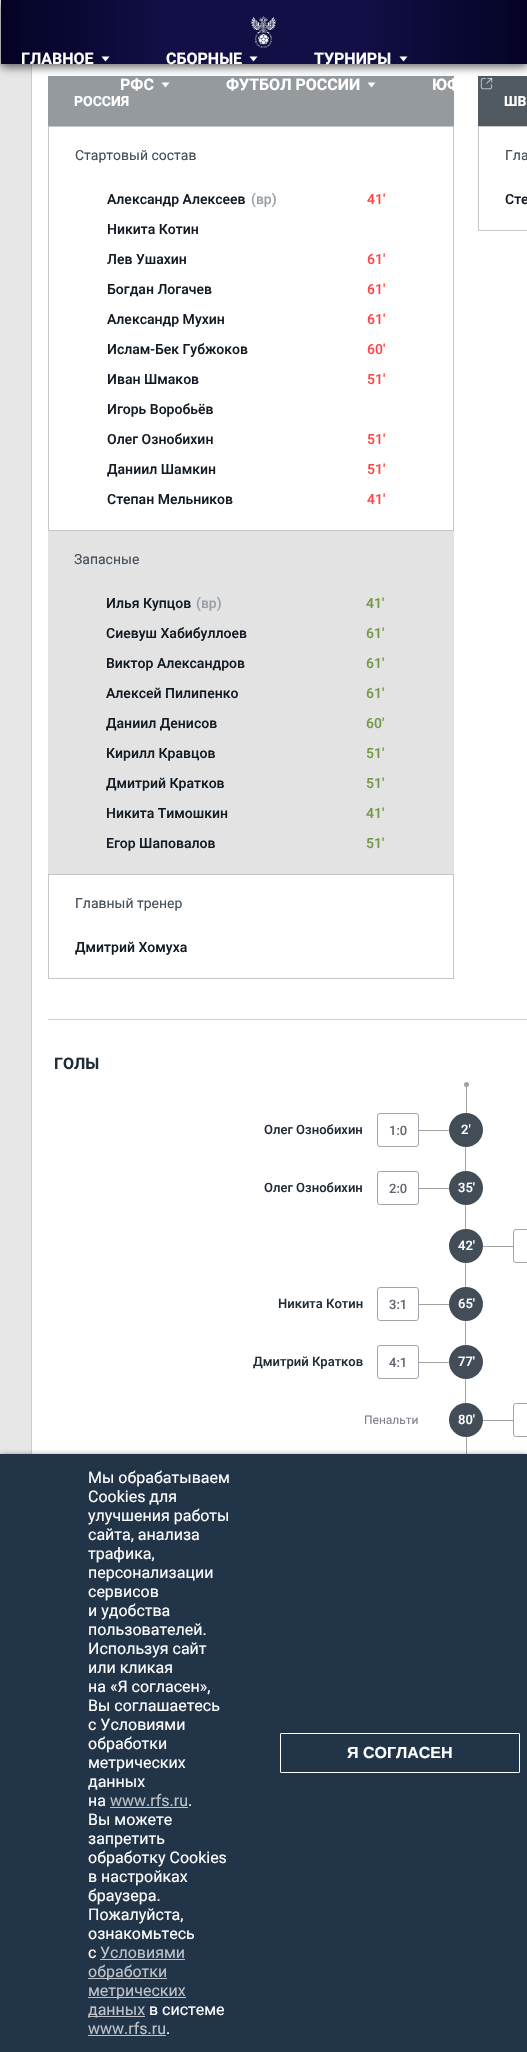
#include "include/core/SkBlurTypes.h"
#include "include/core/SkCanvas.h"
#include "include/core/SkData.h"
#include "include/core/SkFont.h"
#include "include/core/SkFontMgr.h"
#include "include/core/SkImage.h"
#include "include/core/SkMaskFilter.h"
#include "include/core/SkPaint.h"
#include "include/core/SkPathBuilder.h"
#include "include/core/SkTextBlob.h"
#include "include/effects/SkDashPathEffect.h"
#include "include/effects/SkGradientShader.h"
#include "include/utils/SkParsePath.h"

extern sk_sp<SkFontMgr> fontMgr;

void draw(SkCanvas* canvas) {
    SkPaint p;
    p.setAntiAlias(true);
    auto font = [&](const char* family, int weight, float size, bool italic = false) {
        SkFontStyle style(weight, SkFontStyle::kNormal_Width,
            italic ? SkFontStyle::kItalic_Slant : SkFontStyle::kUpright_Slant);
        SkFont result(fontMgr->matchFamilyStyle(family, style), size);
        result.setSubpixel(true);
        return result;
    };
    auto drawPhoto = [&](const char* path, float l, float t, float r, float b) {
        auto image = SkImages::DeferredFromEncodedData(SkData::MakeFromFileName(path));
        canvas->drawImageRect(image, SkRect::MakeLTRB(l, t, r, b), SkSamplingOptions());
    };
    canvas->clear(0xFFE7E7E7);
    {
        const struct { float l, t, r, b; SkColor color; } items[] = {
            {32, 64, 527, 1454, 0xFFFFFFFF},
            {31, 64, 32, 1454, 0xFFCCCCCC},
            {48, 76, 454, 126, 0xFF959A9F},
            {478, 76, 527, 126, 0xFF515A61},
        };
        for (auto [l, t, r, b, color] : items) {
            p.setColor(color);
            canvas->drawRect(SkRect::MakeLTRB(l, t, r, b), p);
        }
    }
    p.setColor(0x99000000);
    p.setMaskFilter(SkMaskFilter::MakeBlur(kNormal_SkBlurStyle, 4.5f));
    canvas->drawRect(SkRect::MakeLTRB(1, 3, 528, 67), p);
    p.setMaskFilter(nullptr);
    {
        const SkColor colors[] = {0xFF040325, 0xFF110F45, 0xFF110F45, 0xFF040325};
        const float stops[] = {0, 0.31f, 0.69f, 1};
        const SkPoint ends[] = {{0.5f, 32}, {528, 32}};
        p.setShader(SkGradientShader::MakeLinear(ends, colors, stops, 4, SkTileMode::kClamp));
        p.setAlpha(255);
    }
    canvas->drawRect(SkRect::MakeLTRB(1, 0, 527, 64), p);
    drawPhoto("media/1.png", 250, 16, 276, 49);
    auto font1 = font("Roboto", 700, 16);
    p.setShader(nullptr);
    p.setColor(0xFFFFFFFF);
    canvas->drawString("ГЛАВНОЕ", 21, 64, font1, p);
    canvas->drawPath(SkPathBuilder().moveTo(101.5f, 56.5f).lineTo(109.5f, 56.5f).lineTo(105.5f, 61.5f).close().detach(), p);
    canvas->drawString("СБОРНЫЕ", 166, 64, font1, p);
    canvas->drawPath(SkPathBuilder().moveTo(249.5f, 56.5f).lineTo(257.5f, 56.5f).lineTo(253.5f, 61.5f).close().detach(), p);
    canvas->drawString("ТУРНИРЫ", 314, 64, font1, p);
    canvas->drawPath(SkPathBuilder().moveTo(399.5f, 56.5f).lineTo(407.5f, 56.5f).lineTo(403.5f, 61.5f).close().detach(), p);
    canvas->drawString("РФС", 120, 90, font1, p);
    canvas->drawPath(SkPathBuilder().moveTo(161.5f, 82.5f).lineTo(169.5f, 82.5f).lineTo(165.5f, 87.5f).close().detach(), p);
    canvas->drawString("ФУТБОЛ РОССИИ", 226, 90, font1, p);
    canvas->drawPath(SkPathBuilder().moveTo(367.5f, 82.5f).lineTo(375.5f, 82.5f).lineTo(371.5f, 87.5f).close().detach(), p);
    canvas->drawString("ЮФ", 432, 90, font1, p);
    drawPhoto("media/2.png", 480, 78, 493, 90);
    p.setColor(0xFFD1D1D1);
    canvas->drawRect(SkRect::MakeLTRB(48, 1019, 527, 1020), p);
    auto font2 = font("Roboto", 700, 14);
    p.setColor(0xFFFFFFFF);
    canvas->drawString("РОССИЯ", 74, 106, font2, p);
    {
        const struct { float l, t, r, b; SkColor color; } items[] = {
            {48, 126, 454, 127, 0xFFC6C6C6},
            {453, 126, 454, 531, 0xFFC6C6C6},
            {48, 126, 49, 184, 0xFFC6C6C6},
        };
        for (auto [l, t, r, b, color] : items) {
            p.setColor(color);
            canvas->drawRect(SkRect::MakeLTRB(l, t, r, b), p);
        }
    }
    auto font3 = font("Roboto", 400, 14);
    p.setColor(0xFF424D58);
    canvas->drawString("Стартовый состав", 75, 160, font3, p);
    p.setColor(0xFFC6C6C6);
    canvas->drawRect(SkRect::MakeLTRB(48, 530, 454, 531), p);
    canvas->drawRect(SkRect::MakeLTRB(48, 184, 49, 531), p);
    auto font4 = font("Roboto", 500, 14);
    p.setColor(0xFF121A23);
    canvas->drawString("Александр Алексеев", 107, 204, font4, p);
    p.setColor(0xFF999FA6);
    canvas->drawString("(вр)", 251, 204, font4, p);
    p.setColor(0xFFFF4444);
    canvas->drawString("41'", 367, 204, font4, p);
    p.setColor(0xFF121A23);
    canvas->drawString("Никита Котин", 107, 234, font4, p);
    canvas->drawString("Лев Ушахин", 107, 264, font4, p);
    p.setColor(0xFFFF4444);
    canvas->drawString("61'", 367, 264, font4, p);
    p.setColor(0xFF121A23);
    canvas->drawString("Богдан Логачев", 107, 294, font4, p);
    p.setColor(0xFFFF4444);
    canvas->drawString("61'", 367, 294, font4, p);
    p.setColor(0xFF121A23);
    canvas->drawString("Александр Мухин", 107, 324, font4, p);
    p.setColor(0xFFFF4444);
    canvas->drawString("61'", 367, 324, font4, p);
    p.setColor(0xFF121A23);
    canvas->drawString("Ислам-Бек Губжоков", 107, 354, font4, p);
    p.setColor(0xFFFF4444);
    canvas->drawString("60'", 367, 354, font4, p);
    p.setColor(0xFF121A23);
    canvas->drawString("Иван Шмаков", 107, 384, font4, p);
    p.setColor(0xFFFF4444);
    canvas->drawString("51'", 367, 384, font4, p);
    p.setColor(0xFF121A23);
    canvas->drawString("Игорь Воробьёв", 107, 414, font4, p);
    canvas->drawString("Олег Ознобихин", 107, 444, font4, p);
    p.setColor(0xFFFF4444);
    canvas->drawString("51'", 367, 444, font4, p);
    p.setColor(0xFF121A23);
    canvas->drawString("Даниил Шамкин", 107, 474, font4, p);
    p.setColor(0xFFFF4444);
    canvas->drawString("51'", 367, 474, font4, p);
    p.setColor(0xFF121A23);
    canvas->drawString("Степан Мельников", 107, 504, font4, p);
    p.setColor(0xFFFF4444);
    canvas->drawString("41'", 367, 504, font4, p);
    p.setColor(0xFFE3E3E3);
    canvas->drawRect(SkRect::MakeLTRB(48, 531, 454, 874), p);
    p.setColor(0xFF424D58);
    canvas->drawString("Запасные", 74, 564, font3, p);
    p.setColor(0xFF121A23);
    canvas->drawString("Илья Купцов", 106, 608, font4, p);
    p.setColor(0xFF999FA6);
    canvas->drawString("(вр)", 196, 608, font4, p);
    p.setColor(0xFF749845);
    canvas->drawString("41'", 366, 608, font4, p);
    p.setColor(0xFF121A23);
    canvas->drawString("Сиевуш Хабибуллоев", 106, 638, font4, p);
    p.setColor(0xFF749845);
    canvas->drawString("61'", 366, 638, font4, p);
    p.setColor(0xFF121A23);
    canvas->drawString("Виктор Александров", 106, 668, font4, p);
    p.setColor(0xFF749845);
    canvas->drawString("61'", 366, 668, font4, p);
    p.setColor(0xFF121A23);
    canvas->drawString("Алексей Пилипенко", 106, 698, font4, p);
    p.setColor(0xFF749845);
    canvas->drawString("61'", 366, 698, font4, p);
    p.setColor(0xFF121A23);
    canvas->drawString("Даниил Денисов", 106, 728, font4, p);
    p.setColor(0xFF749845);
    canvas->drawString("60'", 366, 728, font4, p);
    p.setColor(0xFF121A23);
    canvas->drawString("Кирилл Кравцов", 106, 758, font4, p);
    p.setColor(0xFF749845);
    canvas->drawString("51'", 366, 758, font4, p);
    p.setColor(0xFF121A23);
    canvas->drawString("Дмитрий Кратков", 106, 788, font4, p);
    p.setColor(0xFF749845);
    canvas->drawString("51'", 366, 788, font4, p);
    p.setColor(0xFF121A23);
    canvas->drawString("Никита Тимошкин", 106, 818, font4, p);
    p.setColor(0xFF749845);
    canvas->drawString("41'", 366, 818, font4, p);
    p.setColor(0xFF121A23);
    canvas->drawString("Егор Шаповалов", 106, 848, font4, p);
    p.setColor(0xFF749845);
    canvas->drawString("51'", 366, 848, font4, p);
    {
        const struct { float l, t, r, b; SkColor color; } items[] = {
            {48, 874, 454, 875, 0xFFC6C6C6},
            {453, 874, 454, 979, 0xFFC6C6C6},
            {48, 874, 49, 932, 0xFFC6C6C6},
        };
        for (auto [l, t, r, b, color] : items) {
            p.setColor(color);
            canvas->drawRect(SkRect::MakeLTRB(l, t, r, b), p);
        }
    }
    p.setColor(0xFF424D58);
    canvas->drawString("Главный тренер", 75, 908, font3, p);
    p.setColor(0xFFC6C6C6);
    canvas->drawRect(SkRect::MakeLTRB(48, 978, 454, 979), p);
    canvas->drawRect(SkRect::MakeLTRB(48, 932, 49, 979), p);
    p.setColor(0xFF121A23);
    canvas->drawString("Дмитрий Хомуха", 75, 952, font4, p);
    p.setColor(0xFFFFFFFF);
    canvas->drawString("ШВ", 504, 106, font2, p);
    p.setColor(0xFFC6C6C6);
    canvas->drawRect(SkRect::MakeLTRB(478, 126, 527, 127), p);
    canvas->drawRect(SkRect::MakeLTRB(478, 126, 479, 184), p);
    p.setColor(0xFF424D58);
    canvas->drawString("Гла", 505, 160, font3, p);
    p.setColor(0xFFC6C6C6);
    canvas->drawRect(SkRect::MakeLTRB(478, 230, 527, 231), p);
    canvas->drawRect(SkRect::MakeLTRB(478, 184, 479, 231), p);
    p.setColor(0xFF121A23);
    canvas->drawString("Сте", 505, 204, font4, p);
    p.setColor(0xFF222C37);
    canvas->drawString("ГОЛЫ", 54, 1069, font1, p);
    p.setColor(0xFFA1A1A1);
    canvas->drawCircle(466.5f, 1084.5f, 2.5f, p);
    canvas->drawRect(SkRect::MakeLTRB(466, 1087, 467, 1113), p);
    auto font5 = font("Roboto", 500, 13);
    p.setColor(0xFF222C37);
    canvas->drawString("Олег Ознобихин", 264, 1134, font5, p);
    p.setStyle(SkPaint::kStroke_Style);
    p.setStrokeWidth(1);
    p.setColor(0xFFA0A4AC);
    canvas->drawRoundRect(SkRect::MakeLTRB(377.5f, 1113.5f, 418.5f, 1146.5f), 2.5f, 2.5f, p);
    p.setStyle(SkPaint::kFill_Style);
    p.setColor(0xFF636873);
    canvas->drawString("1:0", 389, 1135, font5, p);
    p.setColor(0xFF424D58);
    canvas->drawCircle(466, 1130, 17, p);
    p.setColor(0xFFA1A1A1);
    canvas->drawRect(SkRect::MakeLTRB(419, 1130, 449, 1131), p);
    p.setColor(0xFFFFFFFF);
    canvas->drawString("2'", 461, 1134, font5, p);
    p.setColor(0xFFA1A1A1);
    canvas->drawRect(SkRect::MakeLTRB(465, 1147, 466, 1171), p);
    p.setColor(0xFF222C37);
    canvas->drawString("Олег Ознобихин", 264, 1192, font5, p);
    p.setStyle(SkPaint::kStroke_Style);
    p.setColor(0xFFA0A4AC);
    canvas->drawRoundRect(SkRect::MakeLTRB(377.5f, 1171.5f, 418.5f, 1204.5f), 2.5f, 2.5f, p);
    p.setStyle(SkPaint::kFill_Style);
    p.setColor(0xFF636873);
    canvas->drawString("2:0", 389, 1193, font5, p);
    p.setColor(0xFF424D58);
    canvas->drawCircle(466, 1188, 17, p);
    p.setColor(0xFFA1A1A1);
    canvas->drawRect(SkRect::MakeLTRB(419, 1188, 449, 1189), p);
    p.setColor(0xFFFFFFFF);
    canvas->drawString("35'", 458, 1192, font5, p);
    p.setColor(0xFFA1A1A1);
    canvas->drawRect(SkRect::MakeLTRB(465, 1205, 466, 1229), p);
    p.setColor(0xFF424D58);
    canvas->drawCircle(466, 1246, 17, p);
    p.setColor(0xFFFFFFFF);
    canvas->drawString("42'", 458, 1250, font5, p);
    p.setColor(0xFFA1A1A1);
    canvas->drawRect(SkRect::MakeLTRB(483, 1246, 513, 1247), p);
    canvas->drawRect(SkRect::MakeLTRB(465, 1263, 466, 1287), p);
    p.setStyle(SkPaint::kStroke_Style);
    p.setColor(0xFFA0A4AC);
    canvas->drawRoundRect(SkRect::MakeLTRB(513.5f, 1229.5f, 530.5f, 1262.5f), 2.5f, 2.5f, p);
    p.setStyle(SkPaint::kFill_Style);
    p.setColor(0xFF222C37);
    canvas->drawString("Никита Котин", 278, 1308, font5, p);
    p.setStyle(SkPaint::kStroke_Style);
    p.setColor(0xFFA0A4AC);
    canvas->drawRoundRect(SkRect::MakeLTRB(377.5f, 1287.5f, 418.5f, 1320.5f), 2.5f, 2.5f, p);
    p.setStyle(SkPaint::kFill_Style);
    p.setColor(0xFF636873);
    canvas->drawString("3:1", 389, 1309, font5, p);
    p.setColor(0xFF424D58);
    canvas->drawCircle(466, 1304, 17, p);
    p.setColor(0xFFA1A1A1);
    canvas->drawRect(SkRect::MakeLTRB(419, 1304, 449, 1305), p);
    p.setColor(0xFFFFFFFF);
    canvas->drawString("65'", 458, 1308, font5, p);
    p.setColor(0xFFA1A1A1);
    canvas->drawRect(SkRect::MakeLTRB(465, 1321, 466, 1345), p);
    p.setColor(0xFF222C37);
    canvas->drawString("Дмитрий Кратков", 253, 1366, font5, p);
    p.setStyle(SkPaint::kStroke_Style);
    p.setColor(0xFFA0A4AC);
    canvas->drawRoundRect(SkRect::MakeLTRB(377.5f, 1345.5f, 418.5f, 1378.5f), 2.5f, 2.5f, p);
    p.setStyle(SkPaint::kFill_Style);
    p.setColor(0xFF636873);
    canvas->drawString("4:1", 389, 1367, font5, p);
    p.setColor(0xFF424D58);
    canvas->drawCircle(466, 1362, 17, p);
    p.setColor(0xFFA1A1A1);
    canvas->drawRect(SkRect::MakeLTRB(419, 1362, 449, 1363), p);
    p.setColor(0xFFFFFFFF);
    canvas->drawString("77'", 458, 1366, font5, p);
    p.setColor(0xFFA1A1A1);
    canvas->drawRect(SkRect::MakeLTRB(465, 1379, 466, 1403), p);
    auto font6 = font("Roboto", 400, 12);
    p.setColor(0xFF7C8288);
    canvas->drawString("Пенальти", 364, 1424, font6, p);
    p.setColor(0xFF424D58);
    canvas->drawCircle(466, 1420, 17, p);
    p.setColor(0xFFFFFFFF);
    canvas->drawString("80'", 458, 1424, font5, p);
    p.setColor(0xFFA1A1A1);
    canvas->drawRect(SkRect::MakeLTRB(483, 1420, 513, 1421), p);
    p.setStyle(SkPaint::kStroke_Style);
    p.setColor(0xFFA0A4AC);
    canvas->drawRoundRect(SkRect::MakeLTRB(513.5f, 1403.5f, 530.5f, 1436.5f), 2.5f, 2.5f, p);
    p.setStyle(SkPaint::kFill_Style);
    p.setColor(0xFFA1A1A1);
    canvas->drawRect(SkRect::MakeLTRB(466, 1437, 467, 1454), p);
    p.setColor(0xE6000000);
    p.setMaskFilter(SkMaskFilter::MakeBlur(kNormal_SkBlurStyle, 3.5f));
    canvas->drawRect(SkRect::MakeLTRB(0, 1457, 527, 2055), p);
    p.setMaskFilter(nullptr);
    p.setColor(0xFF223448);
    canvas->drawRect(SkRect::MakeLTRB(0, 1454, 527, 2052), p);
    auto font7 = font("Roboto", 400, 16);
    p.setColor(0xFFFFFFFF);
    {
        const struct { const char* s; float x, y; } items[] = {
            {"Мы обрабатываем", 88, 1483},
            {"Cookies для", 88, 1502},
            {"улучшения работы", 88, 1521},
            {"сайта, анализа", 88, 1540},
            {"трафика,", 88, 1559},
            {"персонализации", 88, 1578},
            {"сервисов", 88, 1597},
            {"и удобства", 88, 1616},
            {"пользователей.", 88, 1635},
            {"Используя сайт", 88, 1654},
            {"или кликая", 88, 1673},
            {"на «Я согласен»,", 88, 1692},
            {"Вы соглашаетесь", 88, 1711},
            {"с Условиями", 88, 1730},
            {"обработки", 88, 1749},
            {"метрических", 88, 1768},
            {"данных", 88, 1787},
            {"на", 88, 1806},
        };
        for (auto [s, x, y] : items) {
            canvas->drawString(s, x, y, font7, p);
        }
    }
    p.setColor(0xFFBDC2C8);
    canvas->drawString("www.rfs.ru", 110, 1806, font7, p);
    canvas->drawRect(SkRect::MakeLTRB(110, 1807, 188, 1808), p);
    p.setColor(0xFFFFFFFF);
    {
        const struct { const char* s; float x, y; } items[] = {
            {".", 188, 1806},
            {"Вы можете", 88, 1825},
            {"запретить", 88, 1844},
            {"обработку Cookies", 88, 1863},
            {"в настройках", 88, 1882},
            {"браузера.", 88, 1901},
            {"Пожалуйста,", 88, 1920},
            {"ознакомьтесь", 88, 1939},
            {"с", 88, 1958},
        };
        for (auto [s, x, y] : items) {
            canvas->drawString(s, x, y, font7, p);
        }
    }
    p.setColor(0xFFBDC2C8);
    canvas->drawString("Условиями", 100, 1958, font7, p);
    canvas->drawRect(SkRect::MakeLTRB(100, 1959, 185, 1960), p);
    canvas->drawRect(SkRect::MakeLTRB(88, 1978, 167, 1979), p);
    canvas->drawString("обработки", 88, 1977, font7, p);
    canvas->drawRect(SkRect::MakeLTRB(88, 1997, 186, 1998), p);
    canvas->drawString("метрических", 88, 1996, font7, p);
    canvas->drawRect(SkRect::MakeLTRB(88, 2016, 145, 2017), p);
    canvas->drawString("данных", 88, 2015, font7, p);
    p.setColor(0xFFFFFFFF);
    canvas->drawString("в системе", 149, 2015, font7, p);
    p.setColor(0xFFBDC2C8);
    canvas->drawString("www.rfs.ru", 88, 2034, font7, p);
    canvas->drawRect(SkRect::MakeLTRB(88, 2035, 166, 2036), p);
    p.setColor(0xFFFFFFFF);
    canvas->drawString(".", 166, 2034, font7, p);
    p.setStyle(SkPaint::kStroke_Style);
    canvas->drawRoundRect(SkRect::MakeLTRB(280.5f, 1733.5f, 519.5f, 1772.5f), 0.5f, 0.5f, p);
    auto font8 = font("Liberation Sans", 700, 16);
    p.setStyle(SkPaint::kFill_Style);
    canvas->drawString("Я СОГЛАСЕН", 347, 1758, font8, p);
}
